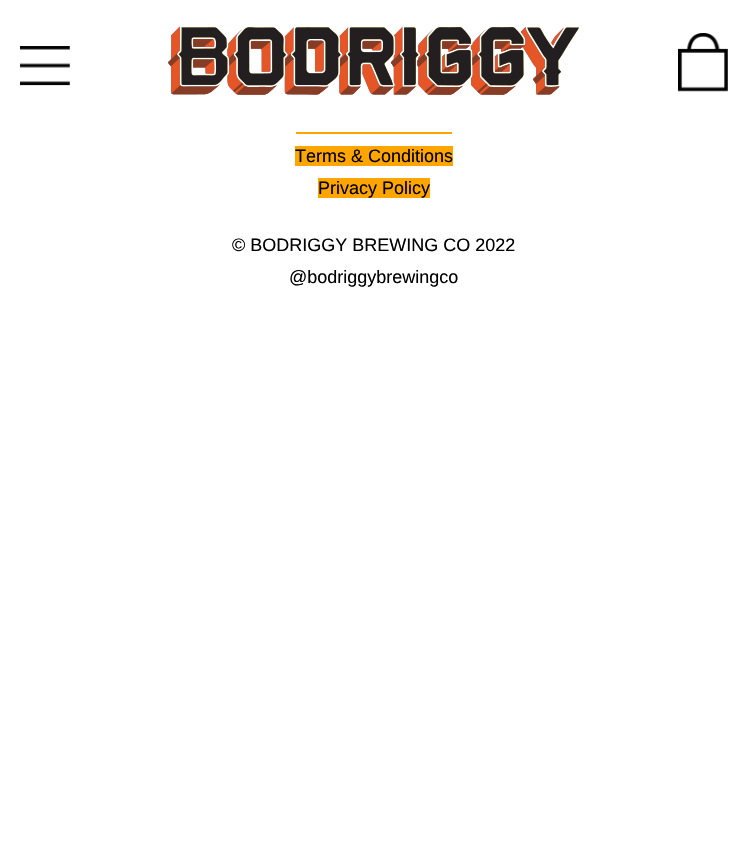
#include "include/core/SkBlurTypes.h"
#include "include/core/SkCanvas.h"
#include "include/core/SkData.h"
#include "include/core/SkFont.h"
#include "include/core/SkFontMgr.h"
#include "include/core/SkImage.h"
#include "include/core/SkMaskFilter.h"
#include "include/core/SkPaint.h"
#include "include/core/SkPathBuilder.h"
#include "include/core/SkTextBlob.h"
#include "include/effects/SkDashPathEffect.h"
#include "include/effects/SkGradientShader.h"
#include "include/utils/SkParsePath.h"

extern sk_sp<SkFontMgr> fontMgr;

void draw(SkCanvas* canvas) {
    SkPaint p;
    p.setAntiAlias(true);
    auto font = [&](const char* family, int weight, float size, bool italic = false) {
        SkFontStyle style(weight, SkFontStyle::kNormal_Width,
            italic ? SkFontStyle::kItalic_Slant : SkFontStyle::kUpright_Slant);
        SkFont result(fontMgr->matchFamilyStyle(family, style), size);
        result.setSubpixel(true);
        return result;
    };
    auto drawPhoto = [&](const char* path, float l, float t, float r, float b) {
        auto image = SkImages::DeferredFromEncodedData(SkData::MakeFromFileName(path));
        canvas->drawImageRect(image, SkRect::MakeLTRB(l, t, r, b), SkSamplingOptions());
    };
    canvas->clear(0xFFFFFFFF);
    drawPhoto("media/1.png", 20, 46, 70, 86);
    drawPhoto("media/2.png", 168, 26, 579, 95);
    drawPhoto("media/3.png", 168, 26, 579, 95);
    drawPhoto("media/4.png", 678, 33, 728, 92);
    p.setColor(0xFFFFA500);
    canvas->drawRect(SkRect::MakeLTRB(296, 132, 452, 134), p);
    canvas->drawRect(SkRect::MakeLTRB(295, 146, 453, 166), p);
    auto font1 = font("Liberation Sans", 400, 18);
    p.setColor(0xFF000000);
    canvas->drawString("Terms & Conditions", 295, 162, font1, p);
    p.setColor(0xFFFFA500);
    canvas->drawRect(SkRect::MakeLTRB(318, 178, 430, 198), p);
    p.setColor(0xFF000000);
    {
        const struct { const char* s; float x, y; } items[] = {
            {"Privacy Policy", 318, 194},
            {"© BODRIGGY BREWING CO 2022", 232, 251},
            {"@bodriggybrewingco", 289, 283},
        };
        for (auto [s, x, y] : items) {
            canvas->drawString(s, x, y, font1, p);
        }
    }
}
